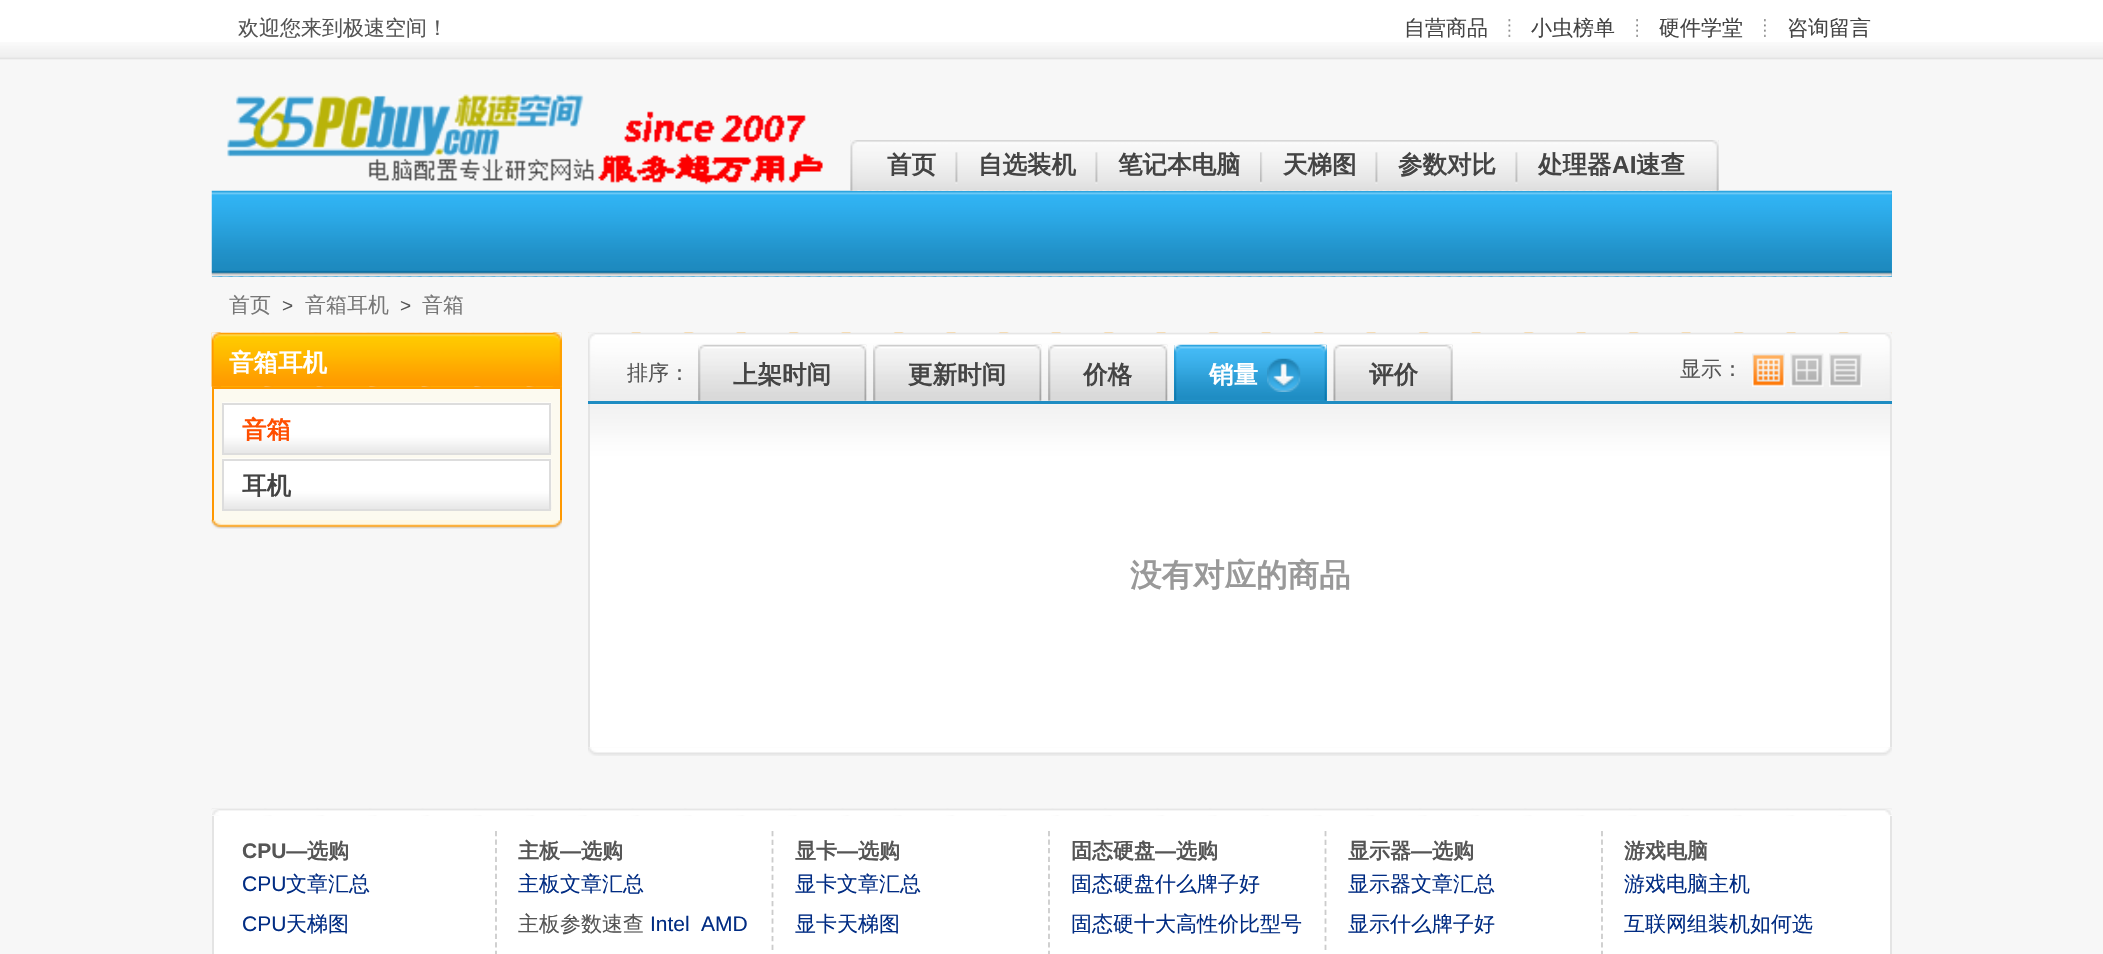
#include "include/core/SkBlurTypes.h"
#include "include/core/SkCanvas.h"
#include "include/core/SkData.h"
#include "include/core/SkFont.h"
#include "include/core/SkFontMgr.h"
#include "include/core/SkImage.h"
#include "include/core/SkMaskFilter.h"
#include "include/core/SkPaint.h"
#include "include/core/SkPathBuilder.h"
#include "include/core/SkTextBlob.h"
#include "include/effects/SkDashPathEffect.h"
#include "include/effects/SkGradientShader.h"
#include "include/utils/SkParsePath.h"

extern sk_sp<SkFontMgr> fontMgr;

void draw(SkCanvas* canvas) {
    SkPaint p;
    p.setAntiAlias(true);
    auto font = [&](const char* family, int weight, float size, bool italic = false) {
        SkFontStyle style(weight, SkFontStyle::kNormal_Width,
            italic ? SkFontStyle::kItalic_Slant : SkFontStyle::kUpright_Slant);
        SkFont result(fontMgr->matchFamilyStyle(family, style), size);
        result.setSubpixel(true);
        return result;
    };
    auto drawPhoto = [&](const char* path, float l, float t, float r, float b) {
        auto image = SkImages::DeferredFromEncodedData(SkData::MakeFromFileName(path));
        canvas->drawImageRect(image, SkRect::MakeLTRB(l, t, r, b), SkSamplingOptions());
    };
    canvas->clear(0xFFF7F7F7);
    p.setColor(0xFFFFFFFF);
    canvas->drawRect(SkRect::MakeLTRB(0, 0, 2103, 60), p);
    drawPhoto("media/1.png", 0, 42, 2103, 60);
    auto font1 = font("WenQuanYi Zen Hei", 500, 21);
    p.setColor(0xFF555555);
    canvas->drawString("欢迎您来到极速空间！", 238, 35, font1, p);
    p.setColor(0xFF444444);
    canvas->drawString("自营商品", 1404, 35, font1, p);
    drawPhoto("media/2.png", 1508, 19, 1511, 37);
    canvas->drawString("小虫榜单", 1531, 35, font1, p);
    drawPhoto("media/3.png", 1636, 19, 1638, 37);
    canvas->drawString("硬件学堂", 1659, 35, font1, p);
    drawPhoto("media/4.png", 1764, 19, 1766, 37);
    canvas->drawString("咨询留言", 1787, 35, font1, p);
    drawPhoto("media/5.png", 227, 94, 823, 185);
    p.setColor(0xFF269DD7);
    canvas->drawRect(SkRect::MakeLTRB(212, 191, 1892, 277), p);
    drawPhoto("media/6.png", 211, 190, 1892, 277);
    p.setColor(0xFFECECEC);
    canvas->drawRect(SkRect::MakeLTRB(851, 140, 1719, 191), p);
    drawPhoto("media/7.png", 850, 140, 1719, 191);
    drawPhoto("media/8.png", 850, 140, 857, 191);
    drawPhoto("media/9.png", 1712, 140, 1719, 191);
    auto font2 = font("WenQuanYi Zen Hei", 700, 24.5f);
    p.setColor(0xFF444444);
    canvas->drawString("首页", 887, 173, font2, p);
    drawPhoto("media/10.png", 955, 152, 958, 184);
    canvas->drawString("自选装机", 978, 173, font2, p);
    drawPhoto("media/10.png", 1095, 152, 1098, 184);
    canvas->drawString("笔记本电脑", 1118, 173, font2, p);
    drawPhoto("media/11.png", 1260, 152, 1263, 184);
    canvas->drawString("天梯图", 1283, 173, font2, p);
    drawPhoto("media/10.png", 1375, 152, 1378, 184);
    canvas->drawString("参数对比", 1398, 173, font2, p);
    drawPhoto("media/10.png", 1515, 152, 1518, 184);
    canvas->drawString("处理器", 1538, 173, font2, p);
    auto font3 = font("Liberation Sans", 700, 24.5f);
    canvas->drawString("AI", 1612, 173, font3, p);
    canvas->drawString("速查", 1636, 173, font2, p);
    p.setColor(0xFF777777);
    canvas->drawString("首页", 229, 312, font1, p);
    auto font4 = font("Liberation Sans", 400, 19);
    p.setColor(0xFF555555);
    canvas->drawString(">", 282, 312, font4, p);
    p.setColor(0xFF777777);
    canvas->drawString("音箱耳机", 305, 312, font1, p);
    p.setColor(0xFF555555);
    canvas->drawString(">", 400, 312, font4, p);
    p.setColor(0xFF777777);
    canvas->drawString("音箱", 422, 312, font1, p);
    drawPhoto("media/12.png", 211, 519, 562, 529);
    p.setColor(0xFFFFBB00);
    canvas->drawRect(SkRect::MakeLTRB(212, 333, 562, 387), p);
    drawPhoto("media/13.png", 211, 332, 562, 387);
    drawPhoto("media/14.png", 211, 332, 221, 387);
    p.setColor(0xFFFFFFFF);
    canvas->drawString("音箱耳机", 229, 371, font2, p);
    drawPhoto("media/15.png", 552, 332, 562, 387);
    {
        const struct { float l, t, r, b; SkColor color; } items[] = {
            {214, 389, 560, 520, 0xFFFCFAF0},
            {212, 387, 562, 389, 0xFFFF9900},
            {560, 387, 562, 520, 0xFFFF9900},
            {212, 387, 214, 520, 0xFFFF9900},
        };
        for (auto [l, t, r, b, color] : items) {
            p.setColor(color);
            canvas->drawRect(SkRect::MakeLTRB(l, t, r, b), p);
        }
    }
    drawPhoto("media/16.png", 222, 402, 552, 454);
    p.setStyle(SkPaint::kStroke_Style);
    p.setStrokeWidth(2);
    p.setColor(0xFFDDDDDD);
    canvas->drawRect(SkRect::MakeLTRB(223, 404, 550, 454), p);
    p.setStyle(SkPaint::kFill_Style);
    p.setColor(0xFFFF4E00);
    canvas->drawString("音箱", 242, 438, font2, p);
    drawPhoto("media/16.png", 222, 458, 552, 510);
    p.setStyle(SkPaint::kStroke_Style);
    p.setColor(0xFFDDDDDD);
    canvas->drawRect(SkRect::MakeLTRB(223, 460, 550, 510), p);
    p.setStyle(SkPaint::kFill_Style);
    p.setColor(0xFF444444);
    canvas->drawString("耳机", 242, 494, font2, p);
    p.setColor(0xFFEDEDED);
    canvas->drawRect(SkRect::MakeLTRB(588, 333, 1892, 401), p);
    drawPhoto("media/17.png", 588, 332, 1892, 401);
    p.setColor(0xFF1F8CC2);
    canvas->drawRect(SkRect::MakeLTRB(588, 401, 1892, 404), p);
    drawPhoto("media/18.png", 588, 332, 595, 401);
    p.setColor(0xFF555555);
    canvas->drawString("排序：", 627, 380, font1, p);
    p.setColor(0xFFE4E4E4);
    canvas->drawRect(SkRect::MakeLTRB(698, 345, 866, 401), p);
    drawPhoto("media/19.png", 698, 344, 867, 401);
    drawPhoto("media/20.png", 859, 344, 867, 401);
    p.setColor(0xFF444444);
    canvas->drawString("上架时间", 733, 383, font2, p);
    p.setColor(0xFFE4E4E4);
    canvas->drawRect(SkRect::MakeLTRB(873, 345, 1041, 401), p);
    drawPhoto("media/21.png", 873, 344, 1042, 401);
    drawPhoto("media/22.png", 1034, 344, 1042, 401);
    p.setColor(0xFF444444);
    canvas->drawString("更新时间", 908, 383, font2, p);
    p.setColor(0xFFE4E4E4);
    canvas->drawRect(SkRect::MakeLTRB(1048, 345, 1167, 401), p);
    drawPhoto("media/23.png", 1048, 344, 1168, 401);
    drawPhoto("media/24.png", 1160, 344, 1168, 401);
    p.setColor(0xFF444444);
    canvas->drawString("价格", 1083, 383, font2, p);
    p.setColor(0xFF269DD7);
    canvas->drawRect(SkRect::MakeLTRB(1174, 345, 1327, 401), p);
    drawPhoto("media/25.png", 1174, 344, 1327, 401);
    drawPhoto("media/26.png", 1319, 344, 1327, 401);
    p.setColor(0xFFFFFFFF);
    canvas->drawString("销量", 1209, 383, font2, p);
    drawPhoto("media/27.png", 1267, 358, 1301, 392);
    p.setColor(0xFFE4E4E4);
    canvas->drawRect(SkRect::MakeLTRB(1334, 345, 1453, 401), p);
    drawPhoto("media/28.png", 1333, 344, 1453, 401);
    drawPhoto("media/29.png", 1445, 344, 1453, 401);
    p.setColor(0xFF444444);
    canvas->drawString("评价", 1369, 383, font2, p);
    drawPhoto("media/30.png", 1885, 333, 1892, 400);
    p.setColor(0xFF555555);
    canvas->drawString("显示：", 1680, 376, font1, p);
    drawPhoto("media/31.png", 1752, 353, 1785, 387);
    drawPhoto("media/32.png", 1790, 353, 1824, 387);
    drawPhoto("media/33.png", 1829, 353, 1862, 387);
    drawPhoto("media/34.png", 588, 747, 1892, 756);
    p.setColor(0xFFFFFFFF);
    canvas->drawRect(SkRect::MakeLTRB(590, 404, 1890, 747), p);
    drawPhoto("media/35.png", 590, 404, 1890, 457);
    p.setColor(0xFFE4E4E4);
    canvas->drawRect(SkRect::MakeLTRB(1890, 404, 1892, 747), p);
    canvas->drawRect(SkRect::MakeLTRB(588, 404, 590, 747), p);
    auto font5 = font("WenQuanYi Zen Hei", 700, 31.5f);
    p.setColor(0xFF999999);
    canvas->drawString("没有对应的商品", 1130, 586, font5, p);
    p.setColor(0xFFFFFFFF);
    canvas->drawRect(SkRect::MakeLTRB(212, 809, 1892, 816), p);
    drawPhoto("media/36.png", 211, 808, 1892, 816);
    drawPhoto("media/37.png", 212, 809, 219, 816);
    drawPhoto("media/38.png", 1885, 809, 1892, 816);
    {
        const struct { float l, t, r, b; SkColor color; } items[] = {
            {214, 816, 1890, 954, 0xFFFFFFFF},
            {1890, 816, 1892, 954, 0xFFE4E4E4},
            {212, 816, 214, 954, 0xFFE4E4E4},
        };
        for (auto [l, t, r, b, color] : items) {
            p.setColor(color);
            canvas->drawRect(SkRect::MakeLTRB(l, t, r, b), p);
        }
    }
    p.setStyle(SkPaint::kStroke_Style);
    p.setStrokeWidth(1.8f);
    p.setColor(0xFFCCCCCC);
    p.setPathEffect(SkDashPathEffect::Make({{5.25f, 3.31f}}, 0));
    canvas->drawPath(SkPathBuilder().moveTo(496, 831).lineTo(496, 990.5f).detach(), p);
    p.setPathEffect(nullptr);
    auto font6 = font("Liberation Sans", 700, 21);
    p.setStyle(SkPaint::kFill_Style);
    p.setColor(0xFF555555);
    canvas->drawString("CPU—", 242, 858, font6, p);
    auto font7 = font("WenQuanYi Zen Hei", 700, 21);
    canvas->drawString("选购", 307, 858, font7, p);
    auto font8 = font("Liberation Sans", 400, 21);
    p.setColor(0xFF012C83);
    canvas->drawString("CPU", 242, 891, font8, p);
    canvas->drawString("文章汇总", 286, 891, font1, p);
    canvas->drawString("CPU", 242, 931, font8, p);
    canvas->drawString("天梯图", 286, 931, font1, p);
    p.setStyle(SkPaint::kStroke_Style);
    p.setColor(0xFFCCCCCC);
    p.setPathEffect(SkDashPathEffect::Make({{5.25f, 3.5f}}, 0));
    canvas->drawPath(SkPathBuilder().moveTo(772.5f, 831).lineTo(772.5f, 950).detach(), p);
    p.setPathEffect(nullptr);
    p.setStyle(SkPaint::kFill_Style);
    p.setColor(0xFF555555);
    canvas->drawString("主板", 518, 858, font7, p);
    canvas->drawString("—", 560, 858, font6, p);
    canvas->drawString("选购", 581, 858, font7, p);
    p.setColor(0xFF012C83);
    canvas->drawString("主板文章汇总", 518, 891, font1, p);
    p.setColor(0xFF555555);
    canvas->drawString("主板参数速查", 518, 931, font1, p);
    p.setColor(0xFF012C83);
    canvas->drawString("Intel", 650, 931, font8, p);
    canvas->drawString("AMD", 701, 931, font8, p);
    p.setStyle(SkPaint::kStroke_Style);
    p.setColor(0xFFCCCCCC);
    p.setPathEffect(SkDashPathEffect::Make({{5.25f, 3.31f}}, 0));
    canvas->drawPath(SkPathBuilder().moveTo(1049, 831).lineTo(1049, 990.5f).detach(), p);
    p.setPathEffect(nullptr);
    p.setStyle(SkPaint::kFill_Style);
    p.setColor(0xFF555555);
    canvas->drawString("显卡", 795, 858, font7, p);
    canvas->drawString("—", 837, 858, font6, p);
    canvas->drawString("选购", 858, 858, font7, p);
    p.setColor(0xFF012C83);
    canvas->drawString("显卡文章汇总", 795, 891, font1, p);
    canvas->drawString("显卡天梯图", 795, 931, font1, p);
    p.setStyle(SkPaint::kStroke_Style);
    p.setColor(0xFFCCCCCC);
    p.setPathEffect(SkDashPathEffect::Make({{5.25f, 3.5f}}, 0));
    canvas->drawPath(SkPathBuilder().moveTo(1325.5f, 831).lineTo(1325.5f, 950).detach(), p);
    p.setPathEffect(nullptr);
    p.setStyle(SkPaint::kFill_Style);
    p.setColor(0xFF555555);
    canvas->drawString("固态硬盘", 1071, 858, font7, p);
    canvas->drawString("—", 1155, 858, font6, p);
    canvas->drawString("选购", 1176, 858, font7, p);
    p.setColor(0xFF012C83);
    canvas->drawString("固态硬盘什么牌子好", 1071, 891, font1, p);
    canvas->drawString("固态硬十大高性价比型号", 1071, 931, font1, p);
    p.setStyle(SkPaint::kStroke_Style);
    p.setColor(0xFFCCCCCC);
    p.setPathEffect(SkDashPathEffect::Make({{5.25f, 3.31f}}, 0));
    canvas->drawPath(SkPathBuilder().moveTo(1602, 831).lineTo(1602, 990.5f).detach(), p);
    p.setPathEffect(nullptr);
    p.setStyle(SkPaint::kFill_Style);
    p.setColor(0xFF555555);
    canvas->drawString("显示器", 1348, 858, font7, p);
    canvas->drawString("—", 1411, 858, font6, p);
    canvas->drawString("选购", 1432, 858, font7, p);
    p.setColor(0xFF012C83);
    canvas->drawString("显示器文章汇总", 1348, 891, font1, p);
    canvas->drawString("显示什么牌子好", 1348, 931, font1, p);
    p.setColor(0xFF555555);
    canvas->drawString("游戏电脑", 1624, 858, font7, p);
    p.setColor(0xFF012C83);
    canvas->drawString("游戏电脑主机", 1624, 891, font1, p);
    canvas->drawString("互联网组装机如何选", 1624, 931, font1, p);
}
